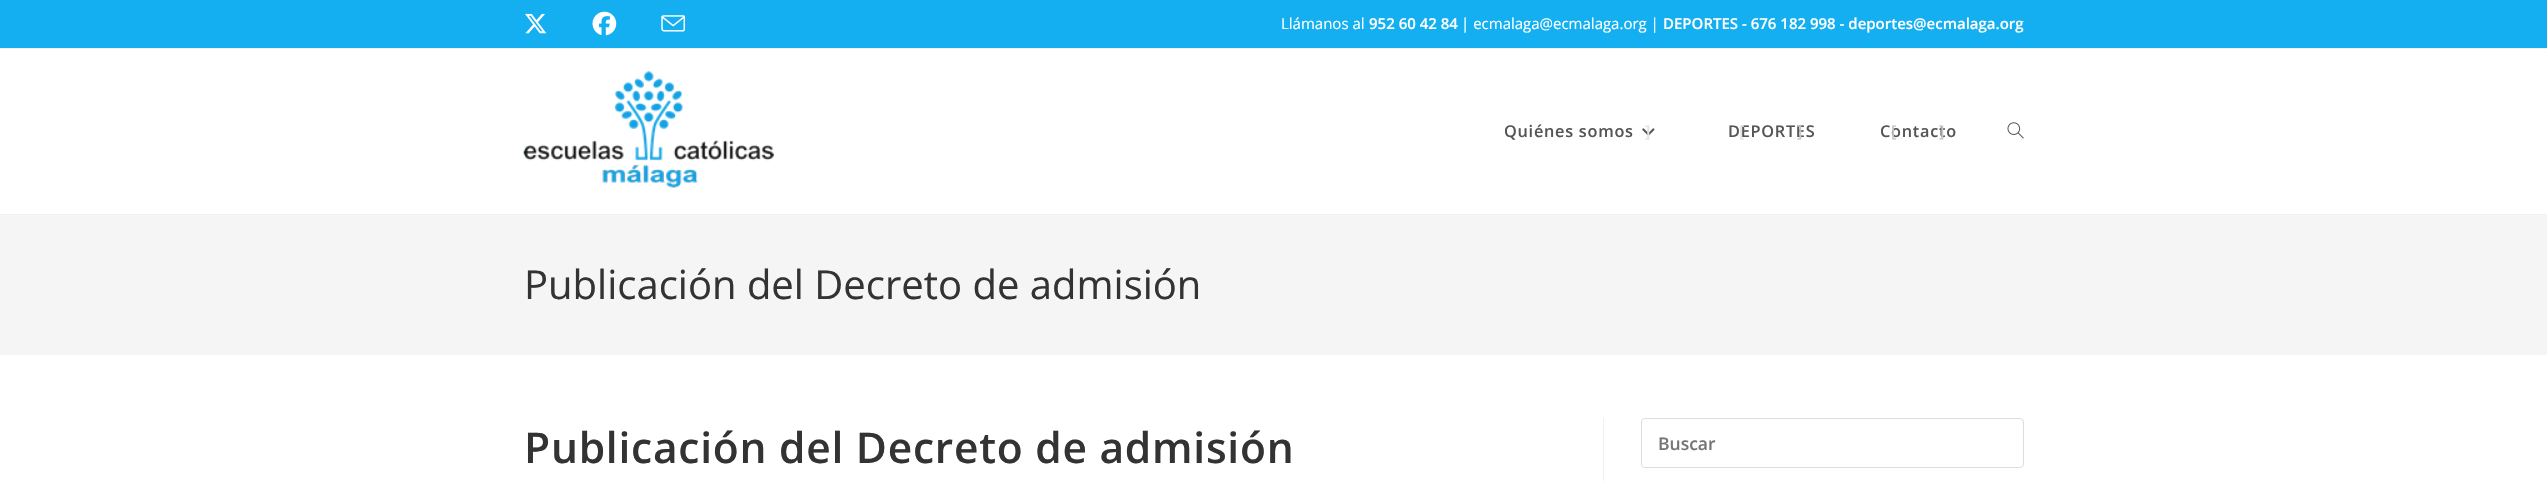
#include "include/core/SkBlurTypes.h"
#include "include/core/SkCanvas.h"
#include "include/core/SkData.h"
#include "include/core/SkFont.h"
#include "include/core/SkFontMgr.h"
#include "include/core/SkImage.h"
#include "include/core/SkMaskFilter.h"
#include "include/core/SkPaint.h"
#include "include/core/SkPathBuilder.h"
#include "include/core/SkTextBlob.h"
#include "include/effects/SkDashPathEffect.h"
#include "include/effects/SkGradientShader.h"
#include "include/utils/SkParsePath.h"

extern sk_sp<SkFontMgr> fontMgr;

void draw(SkCanvas* canvas) {
    SkPaint p;
    p.setAntiAlias(true);
    auto font = [&](const char* family, int weight, float size, bool italic = false) {
        SkFontStyle style(weight, SkFontStyle::kNormal_Width,
            italic ? SkFontStyle::kItalic_Slant : SkFontStyle::kUpright_Slant);
        SkFont result(fontMgr->matchFamilyStyle(family, style), size);
        result.setSubpixel(true);
        return result;
    };
    auto drawTracked = [&](const char* s, float x, float y, const SkFont& font, const SkPaint& ink, float letter, float word) {
        std::vector<SkGlyphID> glyphs(font.countText(s, strlen(s), SkTextEncoding::kUTF8));
        std::vector<float> xs(glyphs.size());
        font.textToGlyphs(s, strlen(s), SkTextEncoding::kUTF8, glyphs);
        font.getXPos(glyphs, xs, x);
        float extra = 0;
        for (size_t i = 0; i < glyphs.size(); i++) {
            xs[i] += extra;
            extra += letter + word * (glyphs[i] == font.unicharToGlyph(' '));
        }
        canvas->drawTextBlob(SkTextBlob::MakeFromPosHGlyphs(glyphs, xs, y, font), 0, 0, ink);
    };
    auto drawPhoto = [&](const char* path, float l, float t, float r, float b) {
        auto image = SkImages::DeferredFromEncodedData(SkData::MakeFromFileName(path));
        canvas->drawImageRect(image, SkRect::MakeLTRB(l, t, r, b), SkSamplingOptions());
    };
    canvas->clear(0xFFFFFFFF);
    p.setColor(0xFF13AFF0);
    canvas->drawRect(SkRect::MakeLTRB(0, 0, 2547, 48), p);
    p.setColor(0xFFF1F1F1);
    canvas->drawRect(SkRect::MakeLTRB(0, 48, 2547, 49), p);
    drawPhoto("media/1.png", 525, 13, 547, 34);
    drawPhoto("media/2.png", 592, 11, 617, 36);
    drawPhoto("media/3.png", 661, 15, 686, 32);
    auto font1 = font("Open Sans", 400, 15);
    p.setColor(0xFFFFFFFF);
    canvas->drawString("Llámanos al", 1281, 29, font1, p);
    auto font2 = font("Open Sans", 600, 15);
    canvas->drawString("952 60 42 84", 1369, 29, font2, p);
    canvas->drawString("| ecmalaga@ecmalaga.org |", 1461, 29, font1, p);
    canvas->drawString("DEPORTES - 676 182 998 - deportes@ecmalaga.org", 1663, 29, font2, p);
    p.setColor(0xFFF1F1F1);
    canvas->drawRect(SkRect::MakeLTRB(0, 214, 2547, 215), p);
    drawPhoto("media/4.png", 523, 71, 774, 188);
    auto font3 = font("Open Sans", 600, 16.25f);
    p.setColor(0xFF555555);
    drawTracked("Quiénes somos", 1504, 137, font3, p, 0.75f, 0);
    drawPhoto("media/5.png", 1642, 128, 1655, 136);
    p.setColor(0xFFE4E4E4);
    drawTracked("]", 1645, 137, font3, p, 0.75f, 0);
    p.setColor(0xFF555555);
    drawTracked("DEPORTES", 1728, 137, font3, p, 0.75f, 0);
    p.setColor(0xFFE4E4E4);
    drawTracked("[", 1739, 137, font3, p, 0.75f, 0);
    p.setColor(0xFFC7C7C7);
    drawTracked("]", 1797, 137, font3, p, 0.75f, 0);
    p.setColor(0xFF555555);
    drawTracked("Contacto", 1880, 137, font3, p, 0.75f, 0);
    p.setColor(0xFFC7C7C7);
    drawTracked("[", 1891, 137, font3, p, 0.75f, 0);
    drawTracked("]", 1939, 137, font3, p, 0.75f, 0);
    drawPhoto("media/6.png", 2007, 122, 2024, 139);
    p.setColor(0xFFF5F5F5);
    canvas->drawRect(SkRect::MakeLTRB(0, 215, 2547, 355), p);
    auto font4 = font("Open Sans", 400, 40);
    p.setColor(0xFF333333);
    canvas->drawString("Publicación del Decreto de admisión", 524, 299, font4, p);
    p.setColor(0xFFF1F1F1);
    canvas->drawRect(SkRect::MakeLTRB(1603, 418, 1604, 481), p);
    auto font5 = font("Open Sans", 600, 42.5f);
    p.setColor(0xFF333333);
    drawTracked("Publicación del Decreto de admisión", 524, 463, font5, p, 0.75f, 0);
    p.setStyle(SkPaint::kStroke_Style);
    p.setStrokeWidth(1);
    p.setColor(0xFFDDDDDD);
    canvas->drawRoundRect(SkRect::MakeLTRB(1641.5f, 418.5f, 2023.5f, 467.5f), 3.5f, 3.5f, p);
    auto font6 = font("Open Sans", 600, 17.5f);
    p.setStyle(SkPaint::kFill_Style);
    p.setColor(0xFF757575);
    canvas->drawString("Buscar", 1658, 450, font6, p);
}
